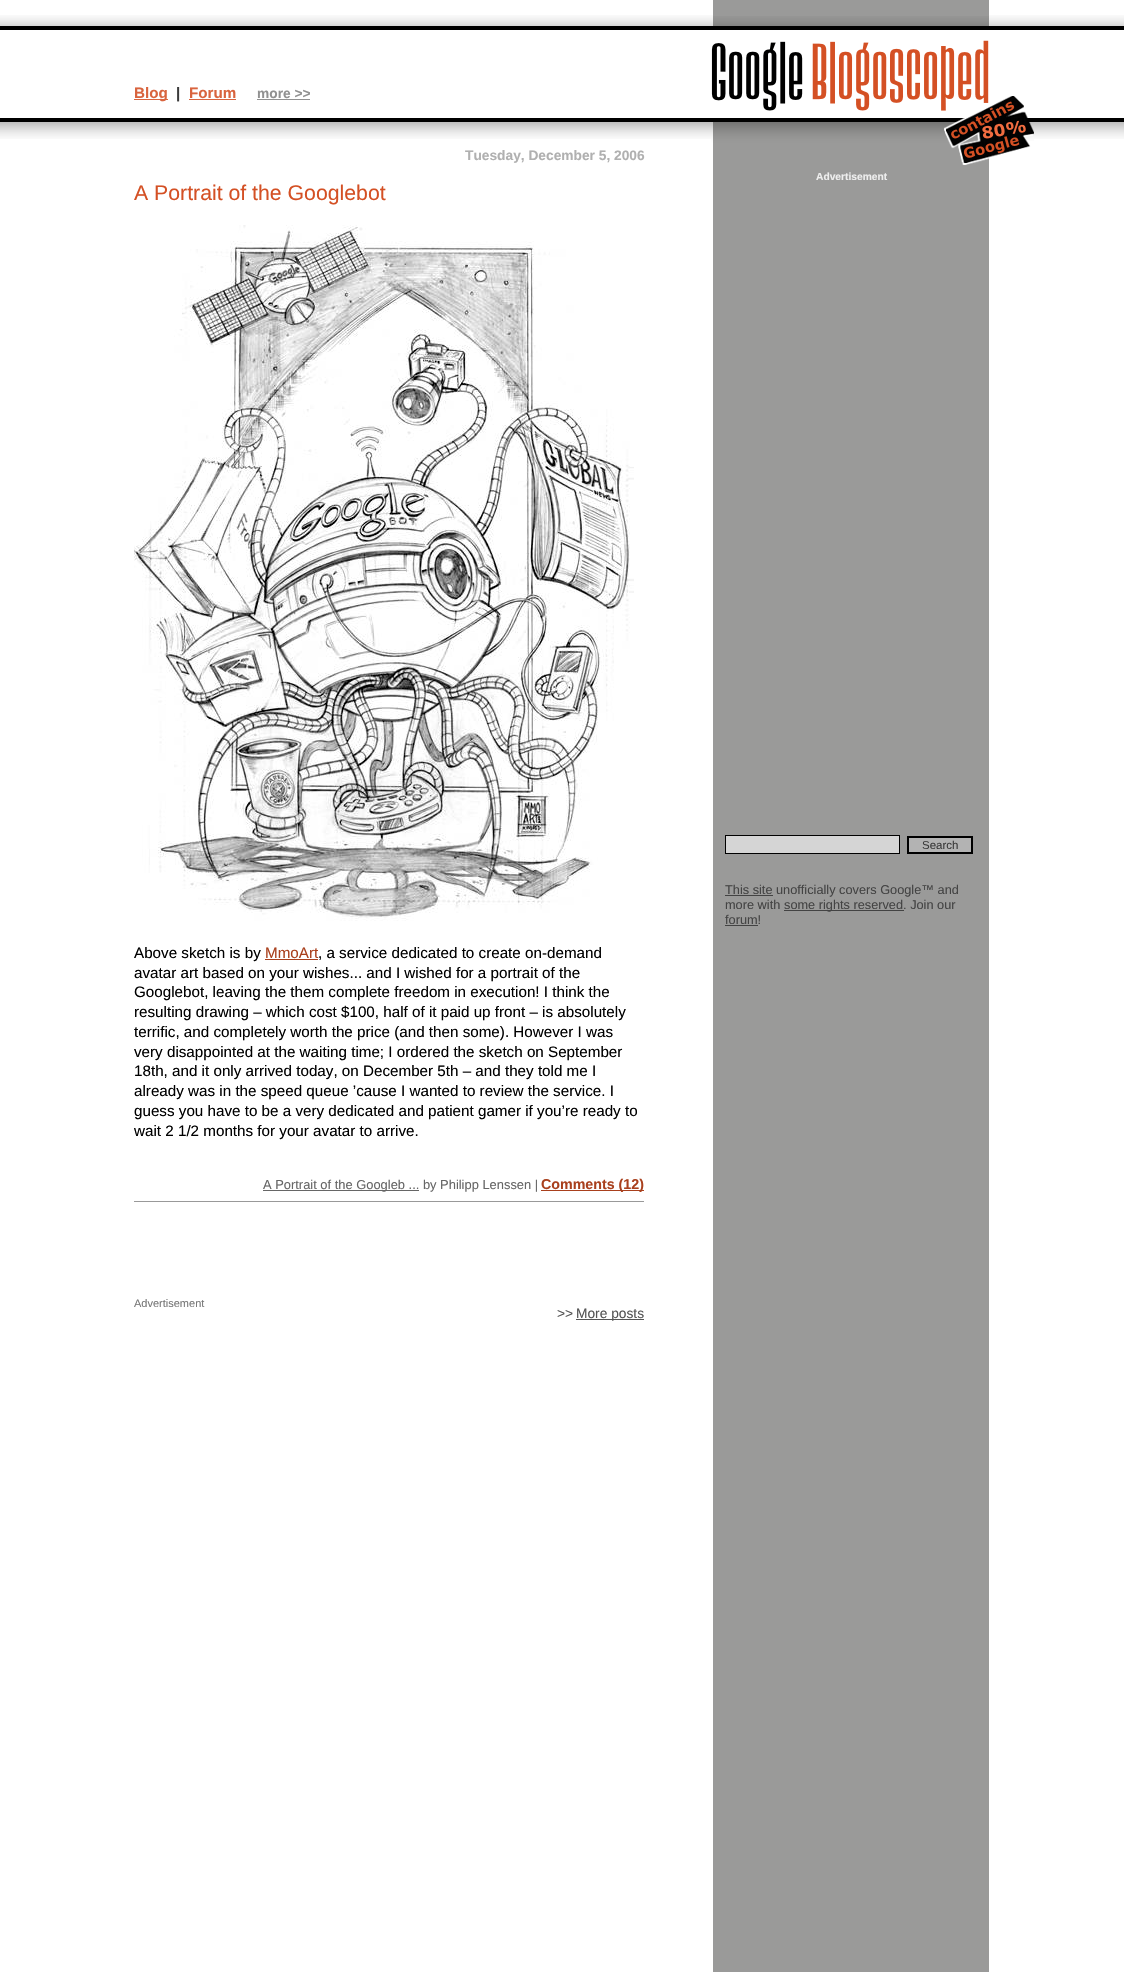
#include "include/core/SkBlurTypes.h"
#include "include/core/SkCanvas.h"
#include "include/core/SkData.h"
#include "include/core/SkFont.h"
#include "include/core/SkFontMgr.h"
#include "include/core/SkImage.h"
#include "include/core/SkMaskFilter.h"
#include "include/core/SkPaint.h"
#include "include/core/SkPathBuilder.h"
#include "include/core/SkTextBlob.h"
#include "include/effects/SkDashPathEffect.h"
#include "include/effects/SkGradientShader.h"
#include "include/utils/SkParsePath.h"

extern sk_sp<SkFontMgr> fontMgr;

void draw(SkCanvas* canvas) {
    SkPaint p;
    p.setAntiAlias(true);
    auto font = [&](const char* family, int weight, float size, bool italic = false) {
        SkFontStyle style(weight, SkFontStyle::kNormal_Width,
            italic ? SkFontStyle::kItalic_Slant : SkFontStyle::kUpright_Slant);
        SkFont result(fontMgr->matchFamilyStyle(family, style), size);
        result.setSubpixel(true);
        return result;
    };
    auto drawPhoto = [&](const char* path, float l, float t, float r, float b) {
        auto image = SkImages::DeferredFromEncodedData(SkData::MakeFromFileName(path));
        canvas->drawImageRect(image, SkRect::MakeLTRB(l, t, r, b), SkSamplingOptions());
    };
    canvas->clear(0xFFFFFFFF);
    drawPhoto("media/1.png", 0, 15, 1124, 139);
    p.setColor(0xFF9A9A99);
    canvas->drawRect(SkRect::MakeLTRB(713, 0, 989, 1972), p);
    p.setColor(0xFFD9643E);
    canvas->drawRect(SkRect::MakeLTRB(134, 99, 168, 100), p);
    auto font1 = font("Liberation Sans", 700, 15.2f);
    canvas->drawString("Blog", 134, 98, font1, p);
    p.setColor(0xFF3B3B3B);
    canvas->drawString("|", 176, 98, font1, p);
    p.setColor(0xFFD9643E);
    canvas->drawString("Forum", 189, 98, font1, p);
    canvas->drawRect(SkRect::MakeLTRB(189, 99, 236, 100), p);
    auto font2 = font("Liberation Sans", 700, 13.75f);
    p.setColor(0xFF919191);
    canvas->drawString("more >>", 257, 98, font2, p);
    canvas->drawRect(SkRect::MakeLTRB(257, 99, 310, 100), p);
    drawPhoto("media/2.png", 711, 16, 1034, 165);
    p.setColor(0xFFB0B0B0);
    canvas->drawString("Tuesday, December 5, 2006", 465, 160, font2, p);
    auto font3 = font("Liberation Sans", 400, 21.25f);
    p.setColor(0xFFD45024);
    canvas->drawString("A Portrait of the Googlebot", 134, 200, font3, p);
    drawPhoto("media/3.png", 134, 225, 634, 921);
    auto font4 = font("Liberation Sans", 400, 15.2f);
    p.setColor(0xFF000000);
    canvas->drawString("Above sketch is by", 134, 958, font4, p);
    p.setColor(0xFFA9401D);
    canvas->drawString("MmoArt", 265, 958, font4, p);
    canvas->drawRect(SkRect::MakeLTRB(265, 959, 318, 960), p);
    p.setColor(0xFF000000);
    {
        const struct { const char* s; float x, y; } items[] = {
            {", a service dedicated to create on-demand", 318, 958},
            {"avatar art based on your wishes... and I wished for a portrait of the", 134, 978},
            {"Googlebot, leaving the them complete freedom in execution! I think the", 134, 997},
            {"resulting drawing – which cost $100, half of it paid up front – is absolutely", 134, 1017},
            {"terrific, and completely worth the price (and then some). However I was", 134, 1037},
            {"very disappointed at the waiting time; I ordered the sketch on September", 134, 1057},
            {"18th, and it only arrived today, on December 5th – and they told me I", 134, 1076},
            {"already was in the speed queue ’cause I wanted to review the service. I", 134, 1096},
            {"guess you have to be a very dedicated and patient gamer if you’re ready to", 134, 1116},
            {"wait 2 1/2 months for your avatar to arrive.", 134, 1136},
        };
        for (auto [s, x, y] : items) {
            canvas->drawString(s, x, y, font4, p);
        }
    }
    p.setColor(0xFF999999);
    canvas->drawRect(SkRect::MakeLTRB(134, 1201, 644, 1202), p);
    p.setColor(0xFF666666);
    canvas->drawRect(SkRect::MakeLTRB(263, 1190, 419, 1191), p);
    auto font5 = font("Liberation Sans", 400, 12.9f);
    canvas->drawString("A Portrait of the Googleb ... by Philipp Lenssen |", 263, 1189, font5, p);
    p.setColor(0xFFA9401D);
    canvas->drawRect(SkRect::MakeLTRB(541, 1190, 644, 1191), p);
    auto font6 = font("Liberation Sans", 700, 14.25f);
    canvas->drawString("Comments (12)", 541, 1189, font6, p);
    auto font7 = font("Liberation Sans", 400, 11);
    p.setColor(0xFF777777);
    canvas->drawString("Advertisement", 134, 1307, font7, p);
    auto font8 = font("Liberation Sans", 400, 13.75f);
    p.setColor(0xFF555555);
    canvas->drawString(">>", 557, 1318, font8, p);
    canvas->drawRect(SkRect::MakeLTRB(576, 1319, 644, 1320), p);
    canvas->drawString("More posts", 576, 1318, font8, p);
    auto font9 = font("Liberation Sans", 700, 10.25f);
    p.setColor(0xFFEEEEEE);
    canvas->drawString("Advertisement", 816, 180, font9, p);
    p.setColor(0xFFD5D5D5);
    canvas->drawRect(SkRect::MakeLTRB(725.5f, 835.5f, 899.5f, 853.5f), p);
    p.setStyle(SkPaint::kStroke_Style);
    p.setStrokeWidth(1);
    p.setColor(0xFF000000);
    canvas->drawRect(SkRect::MakeLTRB(725.5f, 835.5f, 899.5f, 853.5f), p);
    p.setStyle(SkPaint::kFill_Style);
    p.setColor(0xFFB3B3B3);
    canvas->drawRect(SkRect::MakeLTRB(908, 837, 972, 853), p);
    p.setStyle(SkPaint::kStroke_Style);
    p.setStrokeWidth(2);
    p.setColor(0xFF000000);
    canvas->drawRect(SkRect::MakeLTRB(908, 837, 972, 853), p);
    auto font10 = font("Liberation Sans", 400, 11.5f);
    p.setStyle(SkPaint::kFill_Style);
    p.setColor(0xFF3B3B3B);
    canvas->drawString("Search", 922, 849, font10, p);
    p.setColor(0xFF434343);
    canvas->drawRect(SkRect::MakeLTRB(725, 895, 773, 896), p);
    auto font11 = font("Liberation Sans", 400, 12.75f);
    canvas->drawString("This site unofficially covers Google™ and", 725, 894, font11, p);
    canvas->drawString("more with", 725, 909, font11, p);
    canvas->drawRect(SkRect::MakeLTRB(784, 910, 904, 911), p);
    canvas->drawString("some rights reserved. Join our", 784, 909, font11, p);
    canvas->drawString("forum!", 725, 924, font11, p);
    canvas->drawRect(SkRect::MakeLTRB(725, 925, 758, 926), p);
}
